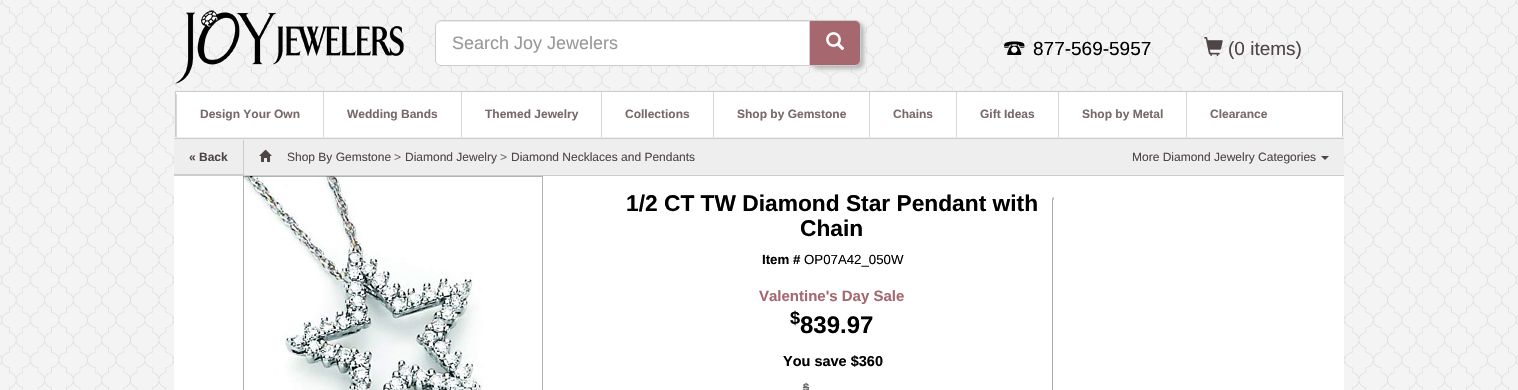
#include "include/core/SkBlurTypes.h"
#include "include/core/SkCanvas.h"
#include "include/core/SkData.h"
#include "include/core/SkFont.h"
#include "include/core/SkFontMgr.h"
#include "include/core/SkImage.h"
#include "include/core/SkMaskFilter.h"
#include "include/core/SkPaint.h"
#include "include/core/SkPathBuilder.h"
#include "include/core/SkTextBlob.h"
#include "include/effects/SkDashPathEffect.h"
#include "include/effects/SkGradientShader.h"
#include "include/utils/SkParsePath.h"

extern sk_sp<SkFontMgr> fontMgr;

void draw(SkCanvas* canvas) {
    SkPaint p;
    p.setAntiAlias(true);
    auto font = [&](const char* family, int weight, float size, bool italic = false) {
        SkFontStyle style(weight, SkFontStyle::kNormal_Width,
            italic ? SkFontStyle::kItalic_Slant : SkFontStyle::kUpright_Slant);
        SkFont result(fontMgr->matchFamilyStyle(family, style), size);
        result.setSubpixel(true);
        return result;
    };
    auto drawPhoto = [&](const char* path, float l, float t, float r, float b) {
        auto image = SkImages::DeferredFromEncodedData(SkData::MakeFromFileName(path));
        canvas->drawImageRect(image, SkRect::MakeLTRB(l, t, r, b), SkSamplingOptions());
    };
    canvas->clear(0xFFFFFFFF);
    drawPhoto("media/1.png", 0, 0, 1518, 390);
    drawPhoto("media/2.png", 175, 10, 404, 84);
    p.setColor(0xFFB5B8B6);
    p.setMaskFilter(SkMaskFilter::MakeBlur(kNormal_SkBlurStyle, 2));
    canvas->drawRoundRect(SkRect::MakeLTRB(812, 23, 864, 69), 6, 6, p);
    p.setMaskFilter(nullptr);
    p.setColor(0xFFA6676F);
    canvas->drawPath(SkPathBuilder().moveTo(809.5f, 20.5f).lineTo(855, 20.5f).cubicTo(858, 20.5f, 860.5f, 23, 860.5f, 26).lineTo(860.5f, 60).cubicTo(860.5f, 63, 858, 65.5f, 855, 65.5f).lineTo(809.5f, 65.5f).close().detach(), p);
    p.setStyle(SkPaint::kStroke_Style);
    p.setStrokeWidth(1);
    p.setColor(0xFFCCCCCC);
    canvas->drawPath(SkPathBuilder().moveTo(809.5f, 20.5f).lineTo(855, 20.5f).cubicTo(858, 20.5f, 860.5f, 23, 860.5f, 26).lineTo(860.5f, 60).cubicTo(860.5f, 63, 858, 65.5f, 855, 65.5f).lineTo(809.5f, 65.5f).close().detach(), p);
    p.setStyle(SkPaint::kFill_Style);
    p.setColor(0xFFFFFFFF);
    canvas->drawPath(SkPathBuilder().moveTo(441, 20).lineTo(810, 20).lineTo(810, 66).lineTo(441, 66).cubicTo(437.5f, 66, 435, 63.5f, 435, 60).lineTo(435, 26).cubicTo(435, 22.5f, 437.5f, 20, 441, 20).close().detach(), p);
    p.setColor(0xFFECECEC);
    canvas->drawPath(SkPathBuilder().moveTo(441, 22).lineTo(809, 22).lineTo(809, 21).lineTo(441, 21).cubicTo(438, 21, 436, 23, 436, 26).lineTo(436, 27).cubicTo(436, 24, 438, 22, 441, 22).close().detach(), p);
    p.setStyle(SkPaint::kStroke_Style);
    p.setColor(0xFFCCCCCC);
    canvas->drawPath(SkPathBuilder().moveTo(441, 20.5f).lineTo(809.5f, 20.5f).lineTo(809.5f, 65.5f).lineTo(441, 65.5f).cubicTo(438, 65.5f, 435.5f, 63, 435.5f, 60).lineTo(435.5f, 26).cubicTo(435.5f, 23, 438, 20.5f, 441, 20.5f).close().detach(), p);
    auto font1 = font("Liberation Sans", 400, 18);
    p.setStyle(SkPaint::kFill_Style);
    p.setColor(0xFF999999);
    canvas->drawString("Search Joy Jewelers", 452, 49, font1, p);
    drawPhoto("media/3.png", 826, 32, 845, 51);
    drawPhoto("media/4.png", 1004, 41, 1025, 55);
    auto font2 = font("Liberation Sans", 400, 19);
    p.setColor(0xFF000000);
    canvas->drawString("877-569-5957", 1033, 55, font2, p);
    drawPhoto("media/5.png", 1204, 37, 1223, 56);
    p.setColor(0xFF4F4545);
    canvas->drawString("(0 items)", 1228, 55, font2, p);
    p.setColor(0xFFEFF1EE);
    canvas->drawRoundRect(SkRect::MakeLTRB(174, 90, 1344, 138), 4, 4, p);
    {
        const struct { float l, t, r, b; SkColor color; } items[] = {
            {176, 92, 1342, 137, 0xFFFFFFFF},
            {175, 91, 1343, 92, 0xFFCCCCCC},
            {1342, 91, 1343, 137, 0xFFCCCCCC},
            {175, 91, 176, 137, 0xFFCCCCCC},
            {176, 94, 177, 137, 0xFFD4D8D5},
        };
        for (auto [l, t, r, b, color] : items) {
            p.setColor(color);
            canvas->drawRect(SkRect::MakeLTRB(l, t, r, b), p);
        }
    }
    auto font3 = font("Liberation Sans", 700, 12);
    p.setColor(0xFF796969);
    canvas->drawString("Design Your Own", 200, 118, font3, p);
    p.setColor(0xFFD4D8D5);
    canvas->drawRect(SkRect::MakeLTRB(323, 92, 324, 137), p);
    p.setColor(0xFF796969);
    canvas->drawString("Wedding Bands", 347, 118, font3, p);
    p.setColor(0xFFD4D8D5);
    canvas->drawRect(SkRect::MakeLTRB(461, 92, 462, 137), p);
    p.setColor(0xFF796969);
    canvas->drawString("Themed Jewelry", 485, 118, font3, p);
    p.setColor(0xFFD4D8D5);
    canvas->drawRect(SkRect::MakeLTRB(601, 92, 602, 137), p);
    p.setColor(0xFF796969);
    canvas->drawString("Collections", 625, 118, font3, p);
    p.setColor(0xFFD4D8D5);
    canvas->drawRect(SkRect::MakeLTRB(713, 92, 714, 137), p);
    p.setColor(0xFF796969);
    canvas->drawString("Shop by Gemstone", 737, 118, font3, p);
    p.setColor(0xFFD4D8D5);
    canvas->drawRect(SkRect::MakeLTRB(869, 92, 870, 137), p);
    p.setColor(0xFF796969);
    canvas->drawString("Chains", 893, 118, font3, p);
    p.setColor(0xFFD4D8D5);
    canvas->drawRect(SkRect::MakeLTRB(956, 92, 957, 137), p);
    p.setColor(0xFF796969);
    canvas->drawString("Gift Ideas", 980, 118, font3, p);
    p.setColor(0xFFD4D8D5);
    canvas->drawRect(SkRect::MakeLTRB(1058, 92, 1059, 137), p);
    p.setColor(0xFF796969);
    canvas->drawString("Shop by Metal", 1082, 118, font3, p);
    p.setColor(0xFFD4D8D5);
    canvas->drawRect(SkRect::MakeLTRB(1186, 92, 1187, 137), p);
    p.setColor(0xFF796969);
    canvas->drawString("Clearance", 1210, 118, font3, p);
    {
        const struct { float l, t, r, b; SkColor color; } items[] = {
            {174, 139, 1344, 175, 0xFFEEEEEE},
            {174, 138, 1344, 139, 0xFFCCCCCC},
            {174, 175, 1344, 176, 0xFFCCCCCC},
            {243, 140, 244, 175, 0xFFCCCCCC},
            {174, 174, 244, 175, 0xFFCCCCCC},
        };
        for (auto [l, t, r, b, color] : items) {
            p.setColor(color);
            canvas->drawRect(SkRect::MakeLTRB(l, t, r, b), p);
        }
    }
    p.setColor(0xFF4F4545);
    canvas->drawString("« Back", 189, 161, font3, p);
    drawPhoto("media/6.png", 259, 149, 272, 162);
    auto font4 = font("Liberation Sans", 400, 12);
    canvas->drawString("Shop By Gemstone", 287, 161, font4, p);
    p.setColor(0xFF796969);
    canvas->drawString(">", 394, 161, font4, p);
    p.setColor(0xFF4F4545);
    canvas->drawString("Diamond Jewelry", 405, 161, font4, p);
    p.setColor(0xFF796969);
    canvas->drawString(">", 500, 161, font4, p);
    p.setColor(0xFF4F4545);
    canvas->drawString("Diamond Necklaces and Pendants", 511, 161, font4, p);
    canvas->drawString("More Diamond Jewelry Categories", 1132, 161, font4, p);
    canvas->drawPath(SkPathBuilder().moveTo(1321, 156).lineTo(1329, 156).lineTo(1325, 160).close().detach(), p);
    p.setColor(0xFFFFFFFF);
    canvas->drawRect(SkRect::MakeLTRB(174, 176, 1344, 390), p);
    drawPhoto("media/7.png", 243, 176, 543, 390);
    auto font5 = font("Liberation Sans", 700, 22.75f);
    p.setColor(0xFF000000);
    canvas->drawString("1/2 CT TW Diamond Star Pendant with", 626, 211, font5, p);
    canvas->drawString("Chain", 800, 236, font5, p);
    auto font6 = font("Liberation Sans", 700, 13.25f);
    canvas->drawString("Item #", 762, 264, font6, p);
    auto font7 = font("Liberation Sans", 400, 13.25f);
    canvas->drawString("OP07A42_050W", 804, 264, font7, p);
    auto font8 = font("Liberation Sans", 700, 15);
    p.setColor(0xFFA6676F);
    canvas->drawString("Valentine's Day Sale", 759, 301, font8, p);
    auto font9 = font("Liberation Sans", 700, 18);
    p.setColor(0xFF000000);
    canvas->drawString("$", 790, 324, font9, p);
    auto font10 = font("Liberation Sans", 700, 24);
    canvas->drawString("839.97", 800, 333, font10, p);
    auto font11 = font("Liberation Sans", 700, 14.5f);
    canvas->drawString("You save $360", 783, 366, font11, p);
    auto font12 = font("Liberation Sans", 700, 11);
    p.setColor(0xFF666666);
    canvas->drawString("$", 803, 391, font12, p);
    canvas->drawRect(SkRect::MakeLTRB(803, 387, 809, 388), p);
    p.setColor(0xFFAAAAAA);
    canvas->drawPath(SkPathBuilder().moveTo(1052, 201).lineTo(1052, 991).cubicTo(1052, 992, 1052, 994, 1053, 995).lineTo(1054, 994).lineTo(1053, 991).lineTo(1053, 201).lineTo(1054, 198).lineTo(1053, 197).cubicTo(1052, 198, 1052, 200, 1052, 201).close().detach(), p);
}
